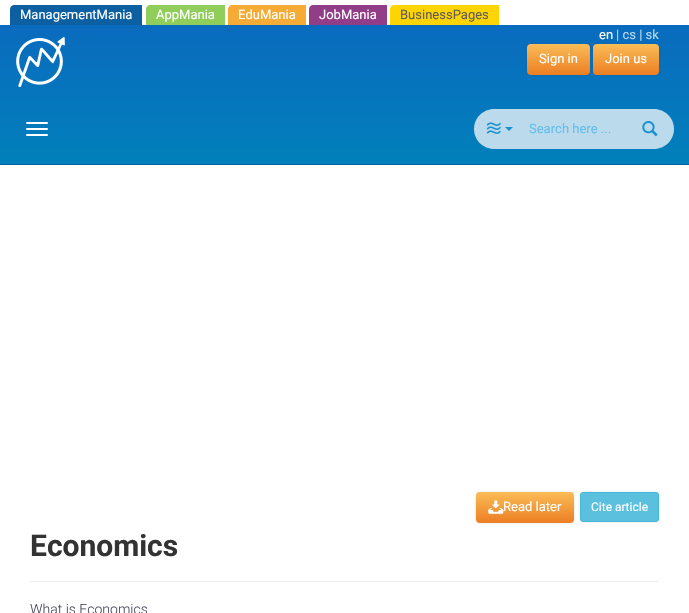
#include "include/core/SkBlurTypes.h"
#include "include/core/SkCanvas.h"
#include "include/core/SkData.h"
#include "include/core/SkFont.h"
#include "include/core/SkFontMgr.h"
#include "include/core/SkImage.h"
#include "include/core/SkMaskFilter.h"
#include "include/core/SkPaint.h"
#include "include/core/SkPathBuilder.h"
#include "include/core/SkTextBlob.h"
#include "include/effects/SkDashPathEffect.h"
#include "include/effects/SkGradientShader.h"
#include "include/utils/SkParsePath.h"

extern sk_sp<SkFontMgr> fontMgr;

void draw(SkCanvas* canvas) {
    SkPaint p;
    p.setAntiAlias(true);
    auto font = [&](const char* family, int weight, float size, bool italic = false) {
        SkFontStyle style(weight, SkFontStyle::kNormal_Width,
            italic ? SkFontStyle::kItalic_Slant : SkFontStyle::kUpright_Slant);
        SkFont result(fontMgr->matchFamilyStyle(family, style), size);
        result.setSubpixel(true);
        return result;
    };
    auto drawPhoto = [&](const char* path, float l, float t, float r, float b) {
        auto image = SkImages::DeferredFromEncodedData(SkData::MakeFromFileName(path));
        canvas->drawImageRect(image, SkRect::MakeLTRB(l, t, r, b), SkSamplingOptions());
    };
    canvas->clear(0xFFFFFFFF);
    p.setColor(0xFF0C60A2);
    canvas->drawPath(SkPathBuilder().moveTo(14, 5).lineTo(142, 5).lineTo(142, 25).lineTo(10, 25).lineTo(10, 9).cubicTo(10, 7, 12, 5, 14, 5).close().detach(), p);
    auto font1 = font("Roboto", 400, 13);
    p.setColor(0xFFFFFFFF);
    canvas->drawString("ManagementMania", 20, 19, font1, p);
    p.setColor(0xFF90CD5A);
    canvas->drawPath(SkPathBuilder().moveTo(150, 5).lineTo(225, 5).lineTo(225, 25).lineTo(146, 25).lineTo(146, 9).cubicTo(146, 7, 148, 5, 150, 5).close().detach(), p);
    p.setColor(0xFFFFFFFF);
    canvas->drawString("AppMania", 156, 19, font1, p);
    p.setColor(0xFFF5AB35);
    canvas->drawPath(SkPathBuilder().moveTo(232, 5).lineTo(306, 5).lineTo(306, 25).lineTo(228, 25).lineTo(228, 9).cubicTo(228, 7, 230, 5, 232, 5).close().detach(), p);
    p.setColor(0xFFFFFFFF);
    canvas->drawString("EduMania", 238, 19, font1, p);
    p.setColor(0xFF913D88);
    canvas->drawPath(SkPathBuilder().moveTo(313, 5).lineTo(387, 5).lineTo(387, 25).lineTo(309, 25).lineTo(309, 9).cubicTo(309, 7, 311, 5, 313, 5).close().detach(), p);
    p.setColor(0xFFFFFFFF);
    canvas->drawString("JobMania", 319, 19, font1, p);
    p.setColor(0xFFFFD400);
    canvas->drawPath(SkPathBuilder().moveTo(394, 5).lineTo(499, 5).lineTo(499, 25).lineTo(390, 25).lineTo(390, 9).cubicTo(390, 7, 392, 5, 394, 5).close().detach(), p);
    p.setColor(0xFF5C5C5C);
    canvas->drawString("BusinessPages", 400, 19, font1, p);
    {
        const SkColor colors[] = {0xFF0A6BBE, 0xFF0180BB};
        const float stops[] = {0, 1};
        const SkPoint ends[] = {{345, 25}, {345, 164}};
        p.setShader(SkGradientShader::MakeLinear(ends, colors, stops, 2, SkTileMode::kClamp));
        p.setAlpha(255);
    }
    canvas->drawRect(SkRect::MakeLTRB(0, 25, 689, 164), p);
    p.setShader(nullptr);
    p.setColor(0xFF0C60A2);
    canvas->drawRect(SkRect::MakeLTRB(0, 164, 689, 165), p);
    drawPhoto("media/1.png", 16, 37, 65, 87);
    p.setColor(0x1A000000);
    p.setMaskFilter(SkMaskFilter::MakeBlur(kNormal_SkBlurStyle, 1.5f));
    canvas->drawRoundRect(SkRect::MakeLTRB(527, 44, 590, 75), 4, 4, p);
    p.setMaskFilter(nullptr);
    {
        const SkColor colors[] = {0xFFFABC56, 0xFFEC7F24};
        const float stops[] = {0.01f, 0.98f};
        const SkPoint ends[] = {{559, 44}, {559, 75}};
        p.setShader(SkGradientShader::MakeLinear(ends, colors, stops, 2, SkTileMode::kClamp));
        p.setAlpha(255);
    }
    canvas->drawRoundRect(SkRect::MakeLTRB(527, 44, 590, 75), 4, 4, p);
    p.setShader(nullptr);
    p.setColor(0x1A000000);
    p.setMaskFilter(SkMaskFilter::MakeBlur(kNormal_SkBlurStyle, 1.5f));
    canvas->drawRoundRect(SkRect::MakeLTRB(593, 44, 659, 75), 4, 4, p);
    p.setMaskFilter(nullptr);
    p.setColor(0xFFFFFFFF);
    canvas->drawString("en", 599, 39, font1, p);
    p.setColor(0xFFBBDAEC);
    canvas->drawString("| cs | sk", 616, 39, font1, p);
    p.setColor(0xFFFFFFFF);
    canvas->drawString("Sign in", 539, 63, font1, p);
    {
        const SkColor colors[] = {0xFFFABC56, 0xFFEC7F24};
        const float stops[] = {0.01f, 0.98f};
        const SkPoint ends[] = {{626, 44}, {626, 75}};
        p.setShader(SkGradientShader::MakeLinear(ends, colors, stops, 2, SkTileMode::kClamp));
        p.setAlpha(255);
    }
    canvas->drawRoundRect(SkRect::MakeLTRB(593, 44, 659, 75), 4, 4, p);
    p.setShader(nullptr);
    p.setColor(0xFFFFFFFF);
    canvas->drawString("Join us", 605, 63, font1, p);
    canvas->drawRoundRect(SkRect::MakeLTRB(26, 122, 48, 124), 1, 1, p);
    canvas->drawRoundRect(SkRect::MakeLTRB(26, 128, 48, 130), 1, 1, p);
    canvas->drawRoundRect(SkRect::MakeLTRB(26, 134, 48, 136), 1, 1, p);
    p.setColor(0xFFBBDAEC);
    canvas->drawPath(SkPathBuilder().moveTo(494, 109).lineTo(525, 109).lineTo(525, 149).lineTo(494, 149).cubicTo(483, 149, 474, 140, 474, 129).cubicTo(474, 118, 483, 109, 494, 109).close().detach(), p);
    drawPhoto("media/2.png", 486, 122, 501, 134);
    p.setColor(0xFF1B91CF);
    canvas->drawPath(SkPathBuilder().moveTo(505, 127).lineTo(513, 127).lineTo(509, 131).close().detach(), p);
    p.setColor(0xFFBBDAEC);
    canvas->drawRect(SkRect::MakeLTRB(525, 109, 630, 149), p);
    p.setColor(0xFF65BDEB);
    canvas->drawString("Search here ...", 529, 133, font1, p);
    p.setColor(0xFFBBDAEC);
    canvas->drawPath(SkPathBuilder().moveTo(630, 109).lineTo(654, 109).cubicTo(665, 109, 674, 118, 674, 129).cubicTo(674, 140, 665, 149, 654, 149).lineTo(630, 149).close().detach(), p);
    drawPhoto("media/3.png", 642, 121, 658, 137);
    p.setColor(0x1A000000);
    p.setMaskFilter(SkMaskFilter::MakeBlur(kNormal_SkBlurStyle, 1.5f));
    canvas->drawRoundRect(SkRect::MakeLTRB(476, 492, 574, 523), 4, 4, p);
    p.setMaskFilter(nullptr);
    {
        const SkColor colors[] = {0xFFFABC56, 0xFFEC7F24};
        const float stops[] = {0.01f, 0.98f};
        const SkPoint ends[] = {{525, 492}, {525, 523}};
        p.setShader(SkGradientShader::MakeLinear(ends, colors, stops, 2, SkTileMode::kClamp));
        p.setAlpha(255);
    }
    canvas->drawRoundRect(SkRect::MakeLTRB(476, 492, 574, 523), 4, 4, p);
    drawPhoto("media/4.png", 488, 500, 504, 514);
    p.setShader(nullptr);
    p.setColor(0xFFFFFFFF);
    canvas->drawString("Read later", 503, 511, font1, p);
    p.setColor(0x1A000000);
    p.setMaskFilter(SkMaskFilter::MakeBlur(kNormal_SkBlurStyle, 1.5f));
    canvas->drawRoundRect(SkRect::MakeLTRB(580, 492, 659, 522), 3, 3, p);
    p.setMaskFilter(nullptr);
    p.setColor(0xFF5BC0DE);
    canvas->drawRoundRect(SkRect::MakeLTRB(580.5f, 492.5f, 658.5f, 521.5f), 2.5f, 2.5f, p);
    p.setStyle(SkPaint::kStroke_Style);
    p.setStrokeWidth(1);
    p.setColor(0xFF46B8DA);
    canvas->drawRoundRect(SkRect::MakeLTRB(580.5f, 492.5f, 658.5f, 521.5f), 2.5f, 2.5f, p);
    auto font2 = font("Roboto", 400, 12);
    p.setStyle(SkPaint::kFill_Style);
    p.setColor(0xFFFFFFFF);
    canvas->drawString("Cite article", 591, 511, font2, p);
    p.setColor(0xFFEEEEEE);
    canvas->drawRect(SkRect::MakeLTRB(30, 581, 659, 582), p);
    auto font3 = font("Roboto", 700, 30);
    p.setColor(0xFF333333);
    canvas->drawString("Economics", 30, 556, font3, p);
    auto font4 = font("Roboto", 300, 14);
    p.setColor(0xFF4A4A61);
    canvas->drawString("What is Economics", 30, 614, font4, p);
}
